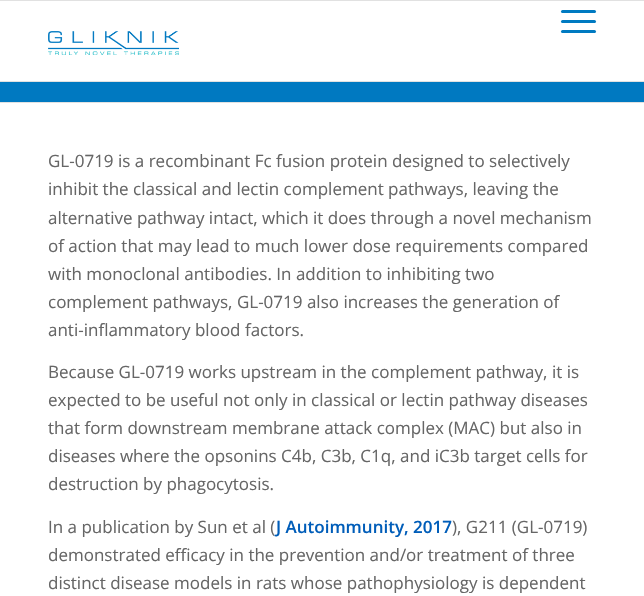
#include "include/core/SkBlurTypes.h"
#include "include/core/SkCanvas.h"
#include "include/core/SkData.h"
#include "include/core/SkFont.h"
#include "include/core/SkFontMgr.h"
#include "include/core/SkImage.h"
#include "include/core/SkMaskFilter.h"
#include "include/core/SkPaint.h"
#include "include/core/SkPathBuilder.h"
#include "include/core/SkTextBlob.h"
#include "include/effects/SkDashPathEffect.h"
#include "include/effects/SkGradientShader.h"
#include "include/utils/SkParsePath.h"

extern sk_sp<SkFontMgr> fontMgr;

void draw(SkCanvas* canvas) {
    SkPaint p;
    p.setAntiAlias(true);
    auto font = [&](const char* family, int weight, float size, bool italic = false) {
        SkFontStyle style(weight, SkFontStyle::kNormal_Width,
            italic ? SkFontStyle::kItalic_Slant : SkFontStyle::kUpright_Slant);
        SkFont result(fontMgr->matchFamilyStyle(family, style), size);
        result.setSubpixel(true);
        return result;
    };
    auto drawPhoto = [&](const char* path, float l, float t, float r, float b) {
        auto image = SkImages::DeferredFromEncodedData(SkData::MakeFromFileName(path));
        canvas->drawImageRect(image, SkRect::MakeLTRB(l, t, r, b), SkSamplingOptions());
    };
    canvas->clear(0xFFFFFFFF);
    p.setColor(0xFFE1E1E1);
    canvas->drawRect(SkRect::MakeLTRB(0, 0, 644, 1), p);
    canvas->drawRect(SkRect::MakeLTRB(0, 81, 644, 82), p);
    p.setColor(0xFF007AC1);
    canvas->drawRoundRect(SkRect::MakeLTRB(561, 20, 596, 23), 1.5f, 1.5f, p);
    canvas->drawRoundRect(SkRect::MakeLTRB(561, 10, 596, 13), 1.5f, 1.5f, p);
    canvas->drawRoundRect(SkRect::MakeLTRB(561, 30, 596, 33), 1.5f, 1.5f, p);
    drawPhoto("media/1.png", 48, 31, 179, 55);
    p.setColor(0xFF0079C1);
    canvas->drawRect(SkRect::MakeLTRB(0, 82, 644, 102), p);
    p.setColor(0xFFE1E1E1);
    canvas->drawRect(SkRect::MakeLTRB(0, 102, 644, 103), p);
    auto font1 = font("Open Sans", 400, 17);
    p.setColor(0xFF666666);
    {
        const struct { const char* s; float x, y; } items[] = {
            {"GL-0719 is a recombinant Fc fusion protein designed to selectively", 48, 167},
            {"inhibit the classical and lectin complement pathways, leaving the", 48, 195},
            {"alternative pathway intact, which it does through a novel mechanism", 48, 224},
            {"of action that may lead to much lower dose requirements compared", 48, 252},
            {"with monoclonal antibodies. In addition to inhibiting two", 48, 280},
            {"complement pathways, GL-0719 also increases the generation of", 48, 308},
            {"anti-inflammatory blood factors.", 48, 336},
            {"Because GL-0719 works upstream in the complement pathway, it is", 48, 378},
            {"expected to be useful not only in classical or lectin pathway diseases", 48, 406},
            {"that form downstream membrane attack complex (MAC) but also in", 48, 434},
            {"diseases where the opsonins C4b, C3b, C1q, and iC3b target cells for", 48, 462},
            {"destruction by phagocytosis.", 48, 490},
            {"In a publication by Sun et al (", 48, 533},
        };
        for (auto [s, x, y] : items) {
            canvas->drawString(s, x, y, font1, p);
        }
    }
    auto font2 = font("Open Sans", 600, 17);
    p.setColor(0xFF005DB9);
    canvas->drawString("J Autoimmunity, 2017", 276, 533, font2, p);
    p.setColor(0xFF666666);
    {
        const struct { const char* s; float x, y; } items[] = {
            {"), G211 (GL-0719)", 452, 533},
            {"demonstrated efficacy in the prevention and/or treatment of three", 48, 561},
            {"distinct disease models in rats whose pathophysiology is dependent", 48, 589},
        };
        for (auto [s, x, y] : items) {
            canvas->drawString(s, x, y, font1, p);
        }
    }
}
